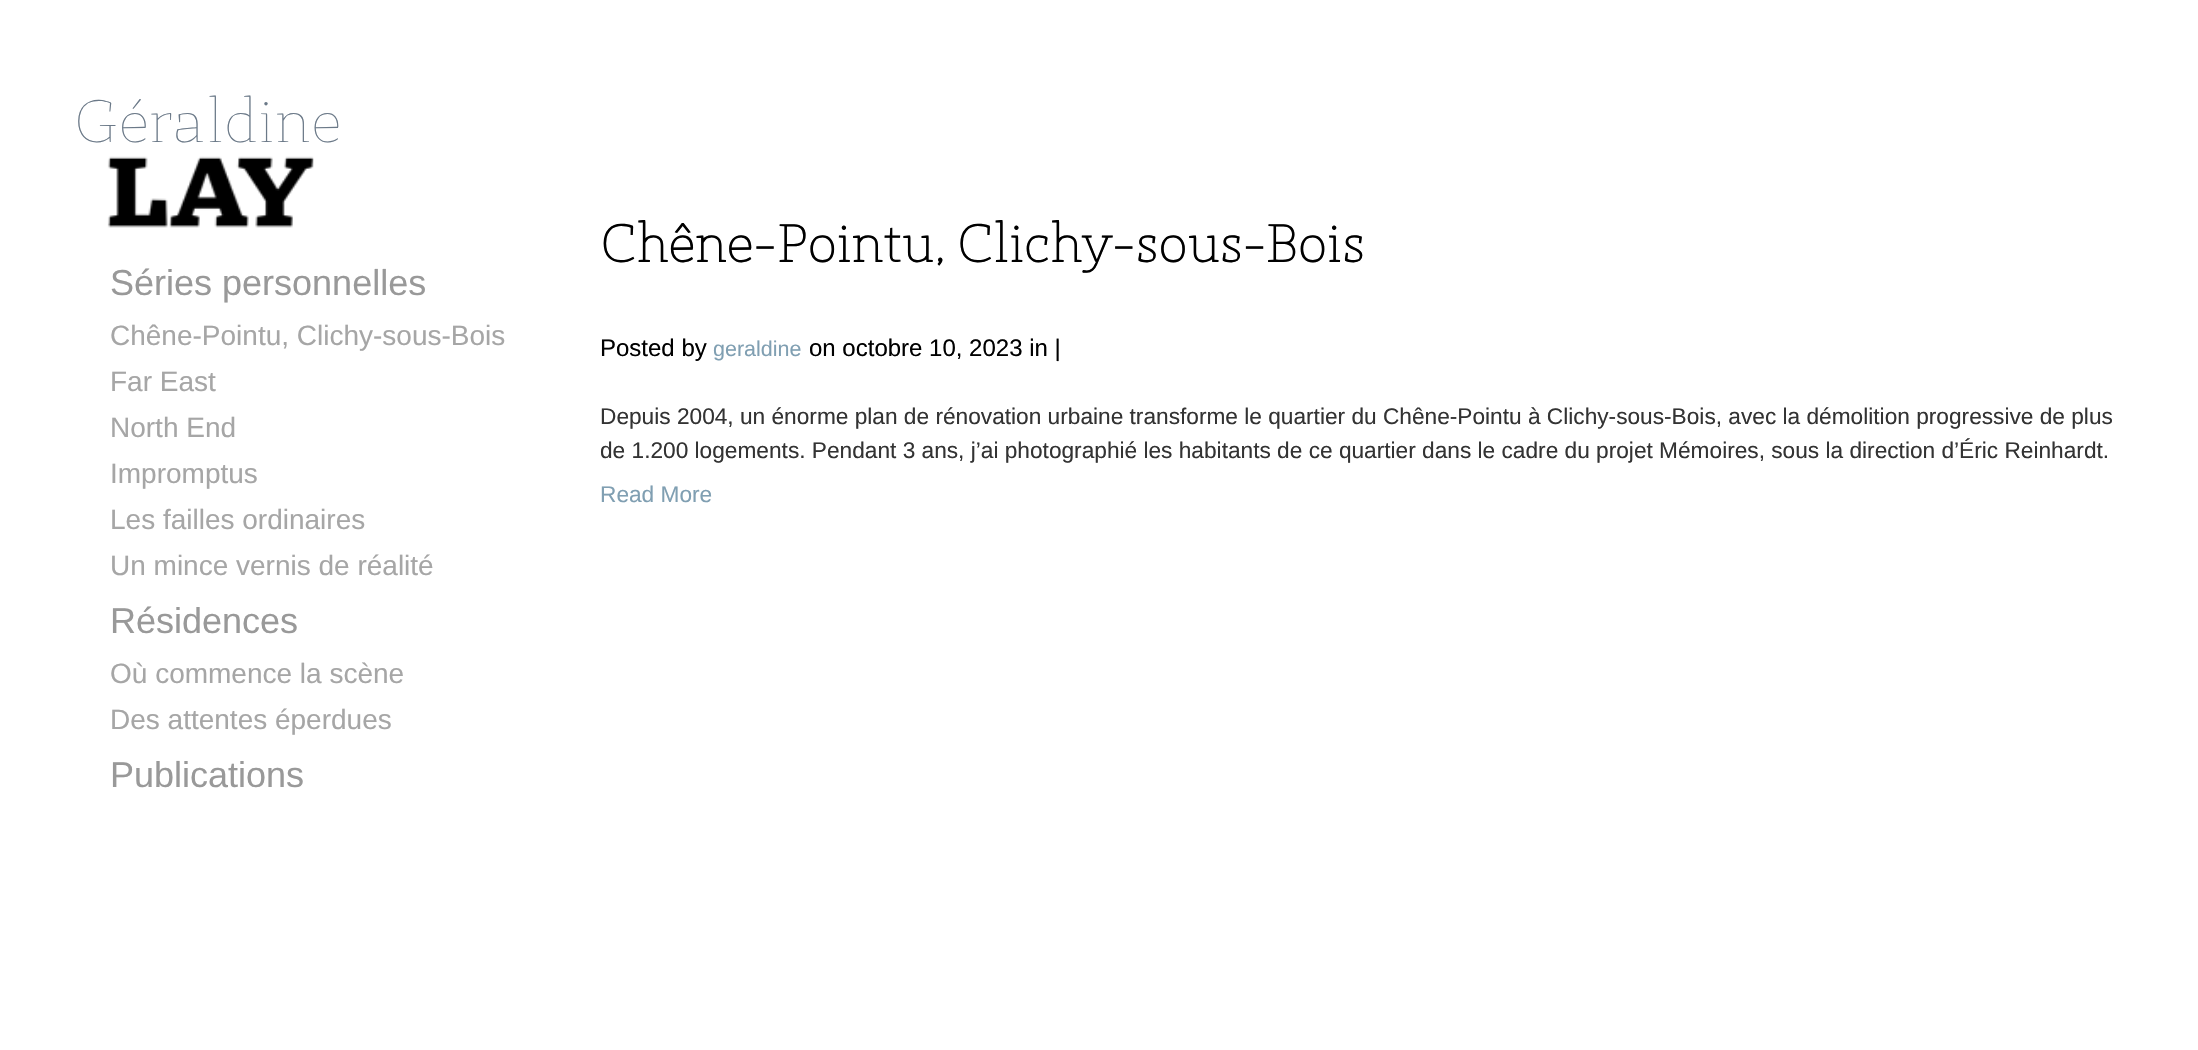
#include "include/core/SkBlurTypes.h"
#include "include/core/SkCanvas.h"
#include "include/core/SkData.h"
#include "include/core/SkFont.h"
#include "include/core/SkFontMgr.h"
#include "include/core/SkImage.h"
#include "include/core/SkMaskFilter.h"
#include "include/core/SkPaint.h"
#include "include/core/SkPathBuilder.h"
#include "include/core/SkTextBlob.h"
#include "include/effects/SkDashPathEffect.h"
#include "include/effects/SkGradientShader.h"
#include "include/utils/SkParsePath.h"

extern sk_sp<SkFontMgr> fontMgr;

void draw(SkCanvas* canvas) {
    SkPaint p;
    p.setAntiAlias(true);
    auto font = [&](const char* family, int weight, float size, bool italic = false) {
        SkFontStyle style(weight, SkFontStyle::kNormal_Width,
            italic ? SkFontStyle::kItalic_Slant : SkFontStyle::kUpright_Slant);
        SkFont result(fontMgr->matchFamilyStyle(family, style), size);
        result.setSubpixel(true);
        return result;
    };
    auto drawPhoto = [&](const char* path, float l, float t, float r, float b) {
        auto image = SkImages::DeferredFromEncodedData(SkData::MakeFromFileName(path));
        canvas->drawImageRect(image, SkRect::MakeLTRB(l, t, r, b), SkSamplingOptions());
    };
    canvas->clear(0xFFFFFFFF);
    auto font1 = font("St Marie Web", 100, 59.5f);
    p.setColor(0xFF6B7988);
    canvas->drawString("Géraldine", 74, 142, font1, p);
    drawPhoto("media/1.png", 107, 156, 314, 228);
    auto font2 = font("Liberation Sans", 400, 36);
    p.setColor(0xFF999999);
    canvas->drawString("Séries personnelles", 110, 295, font2, p);
    auto font3 = font("Liberation Sans", 400, 28);
    p.setColor(0xFFA6A6A6);
    {
        const struct { const char* s; float x, y; } items[] = {
            {"Chêne-Pointu, Clichy-sous-Bois", 110, 345},
            {"Far East", 110, 391},
            {"North End", 110, 437},
            {"Impromptus", 110, 483},
            {"Les failles ordinaires", 110, 529},
            {"Un mince vernis de réalité", 110, 575},
        };
        for (auto [s, x, y] : items) {
            canvas->drawString(s, x, y, font3, p);
        }
    }
    p.setColor(0xFF999999);
    canvas->drawString("Résidences", 110, 633, font2, p);
    p.setColor(0xFFA6A6A6);
    canvas->drawString("Où commence la scène", 110, 683, font3, p);
    canvas->drawString("Des attentes éperdues", 110, 729, font3, p);
    p.setColor(0xFF999999);
    canvas->drawString("Publications", 110, 787, font2, p);
    auto font4 = font("St Marie Web", 700, 52);
    p.setColor(0xFF000000);
    canvas->drawString("Chêne-Pointu, Clichy-sous-Bois", 600, 262, font4, p);
    auto font5 = font("Liberation Sans", 400, 24);
    canvas->drawString("Posted by", 600, 356, font5, p);
    auto font6 = font("Liberation Sans", 400, 21.5f);
    p.setColor(0xFF809FB2);
    canvas->drawString("geraldine", 713, 356, font6, p);
    p.setColor(0xFF000000);
    canvas->drawString("on octobre 10, 2023 in |", 809, 356, font5, p);
    auto font7 = font("Liberation Sans", 400, 22.68f);
    p.setColor(0xFF333333);
    canvas->drawString("Depuis 2004, un énorme plan de rénovation urbaine transforme le quartier du Chêne-Pointu à Clichy-sous-Bois, avec la démolition progressive de plus", 600, 424, font7, p);
    canvas->drawString("de 1.200 logements. Pendant 3 ans, j’ai photographié les habitants de ce quartier dans le cadre du projet Mémoires, sous la direction d’Éric Reinhardt.", 600, 458, font7, p);
    p.setColor(0xFF809FB2);
    canvas->drawString("Read More", 600, 502, font7, p);
}
